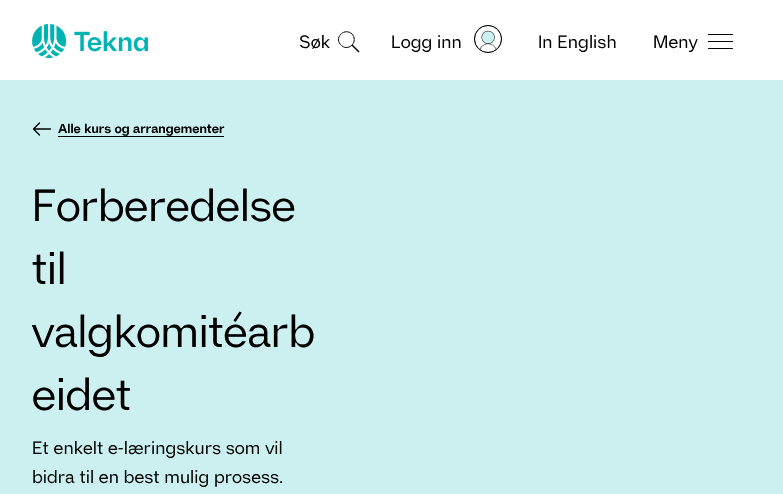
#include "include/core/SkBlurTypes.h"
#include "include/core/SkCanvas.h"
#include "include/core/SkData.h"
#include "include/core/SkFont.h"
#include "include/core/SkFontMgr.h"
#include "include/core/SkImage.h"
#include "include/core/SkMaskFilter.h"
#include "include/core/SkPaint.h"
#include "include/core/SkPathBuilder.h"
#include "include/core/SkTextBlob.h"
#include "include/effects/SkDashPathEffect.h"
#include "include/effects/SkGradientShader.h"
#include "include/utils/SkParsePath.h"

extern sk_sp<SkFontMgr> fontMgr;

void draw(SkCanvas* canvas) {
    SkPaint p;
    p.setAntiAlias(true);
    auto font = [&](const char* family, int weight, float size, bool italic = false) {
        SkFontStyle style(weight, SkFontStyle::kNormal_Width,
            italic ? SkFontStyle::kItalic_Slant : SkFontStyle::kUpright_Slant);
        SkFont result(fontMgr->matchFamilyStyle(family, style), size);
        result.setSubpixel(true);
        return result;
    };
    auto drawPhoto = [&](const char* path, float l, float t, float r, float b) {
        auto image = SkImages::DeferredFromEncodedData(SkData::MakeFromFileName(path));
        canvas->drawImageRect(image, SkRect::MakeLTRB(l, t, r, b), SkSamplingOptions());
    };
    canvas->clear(0xFFFFFFFF);
    drawPhoto("media/1.png", 32, 24, 148, 58);
    auto font1 = font("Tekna", 400, 18);
    p.setColor(0xFF000000);
    canvas->drawString("Søk", 299, 48, font1, p);
    canvas->save();
    canvas->clipPath(SkPathBuilder().moveTo(335, 39.5f).lineTo(341, 33.5f).lineTo(353, 45.5f).lineTo(347, 51.5f).close().detach(), true);
    p.setStyle(SkPaint::kStroke_Style);
    p.setStrokeWidth(1);
    canvas->drawPath(SkPathBuilder().moveTo(352, 45).cubicTo(344.5f, 52.5f, 333.5f, 41.5f, 341, 34).detach(), p);
    canvas->restore();
    canvas->save();
    canvas->clipPath(SkPathBuilder().moveTo(341, 33.5f).lineTo(347, 27.5f).lineTo(353, 33.5f).lineTo(347, 39.5f).close().detach(), true);
    canvas->drawPath(SkPathBuilder().moveTo(341, 34).cubicTo(344, 31, 349, 31, 352, 34).detach(), p);
    canvas->restore();
    canvas->save();
    canvas->clipPath(SkPathBuilder().moveTo(347, 39.5f).lineTo(353, 33.5f).lineTo(359, 39.5f).lineTo(353, 45.5f).close().detach(), true);
    canvas->drawPath(SkPathBuilder().moveTo(352, 34).cubicTo(355, 37, 355, 42, 352, 45).detach(), p);
    canvas->restore();
    p.setStyle(SkPaint::kFill_Style);
    canvas->drawPath(SkPathBuilder().moveTo(359.5f, 51.5f).lineTo(358.5f, 52.5f).lineTo(351.5f, 45.5f).lineTo(352.5f, 44.5f).close().detach(), p);
    canvas->drawString("Logg inn", 391, 48, font1, p);
    drawPhoto("media/2.png", 474, 25, 502, 53);
    p.setStyle(SkPaint::kStroke_Style);
    canvas->drawCircle(488, 39, 13.5f, p);
    p.setStyle(SkPaint::kFill_Style);
    canvas->drawString("In English", 538, 48, font1, p);
    canvas->drawString("Meny", 653, 48, font1, p);
    canvas->drawRoundRect(SkRect::MakeLTRB(708, 41, 733, 42), 0.5f, 0.5f, p);
    canvas->drawRoundRect(SkRect::MakeLTRB(708, 34, 733, 35), 0.5f, 0.5f, p);
    canvas->drawRoundRect(SkRect::MakeLTRB(708, 48, 733, 49), 0.5f, 0.5f, p);
    p.setColor(0xFFCCF0F0);
    canvas->drawRect(SkRect::MakeLTRB(0, 80, 783, 494), p);
    p.setStyle(SkPaint::kStroke_Style);
    p.setStrokeWidth(1.3f);
    p.setStrokeCap(SkPaint::kRound_Cap);
    p.setStrokeJoin(SkPaint::kRound_Join);
    p.setColor(0xFF000000);
    canvas->drawPath(SkPathBuilder().moveTo(50.5f, 129).lineTo(33.5f, 129).moveTo(39.5f, 123).lineTo(33.5f, 129).lineTo(39.5f, 135).detach(), p);
    auto font2 = font("Tekna", 700, 13);
    p.setStyle(SkPaint::kFill_Style);
    canvas->drawString("Alle kurs og arrangementer", 58, 133, font2, p);
    canvas->drawRect(SkRect::MakeLTRB(58, 136, 224, 137), p);
    auto font3 = font("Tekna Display", 400, 45);
    {
        const struct { const char* s; float x, y; } items[] = {
            {"Forberedelse", 32, 221},
            {"til", 32, 284},
            {"valgkomitéarb", 32, 347},
            {"eidet", 32, 410},
        };
        for (auto [s, x, y] : items) {
            canvas->drawString(s, x, y, font3, p);
        }
    }
    canvas->drawString("Et enkelt e-læringskurs som vil", 32, 454, font1, p);
    canvas->drawString("bidra til en best mulig prosess.", 32, 483, font1, p);
}
